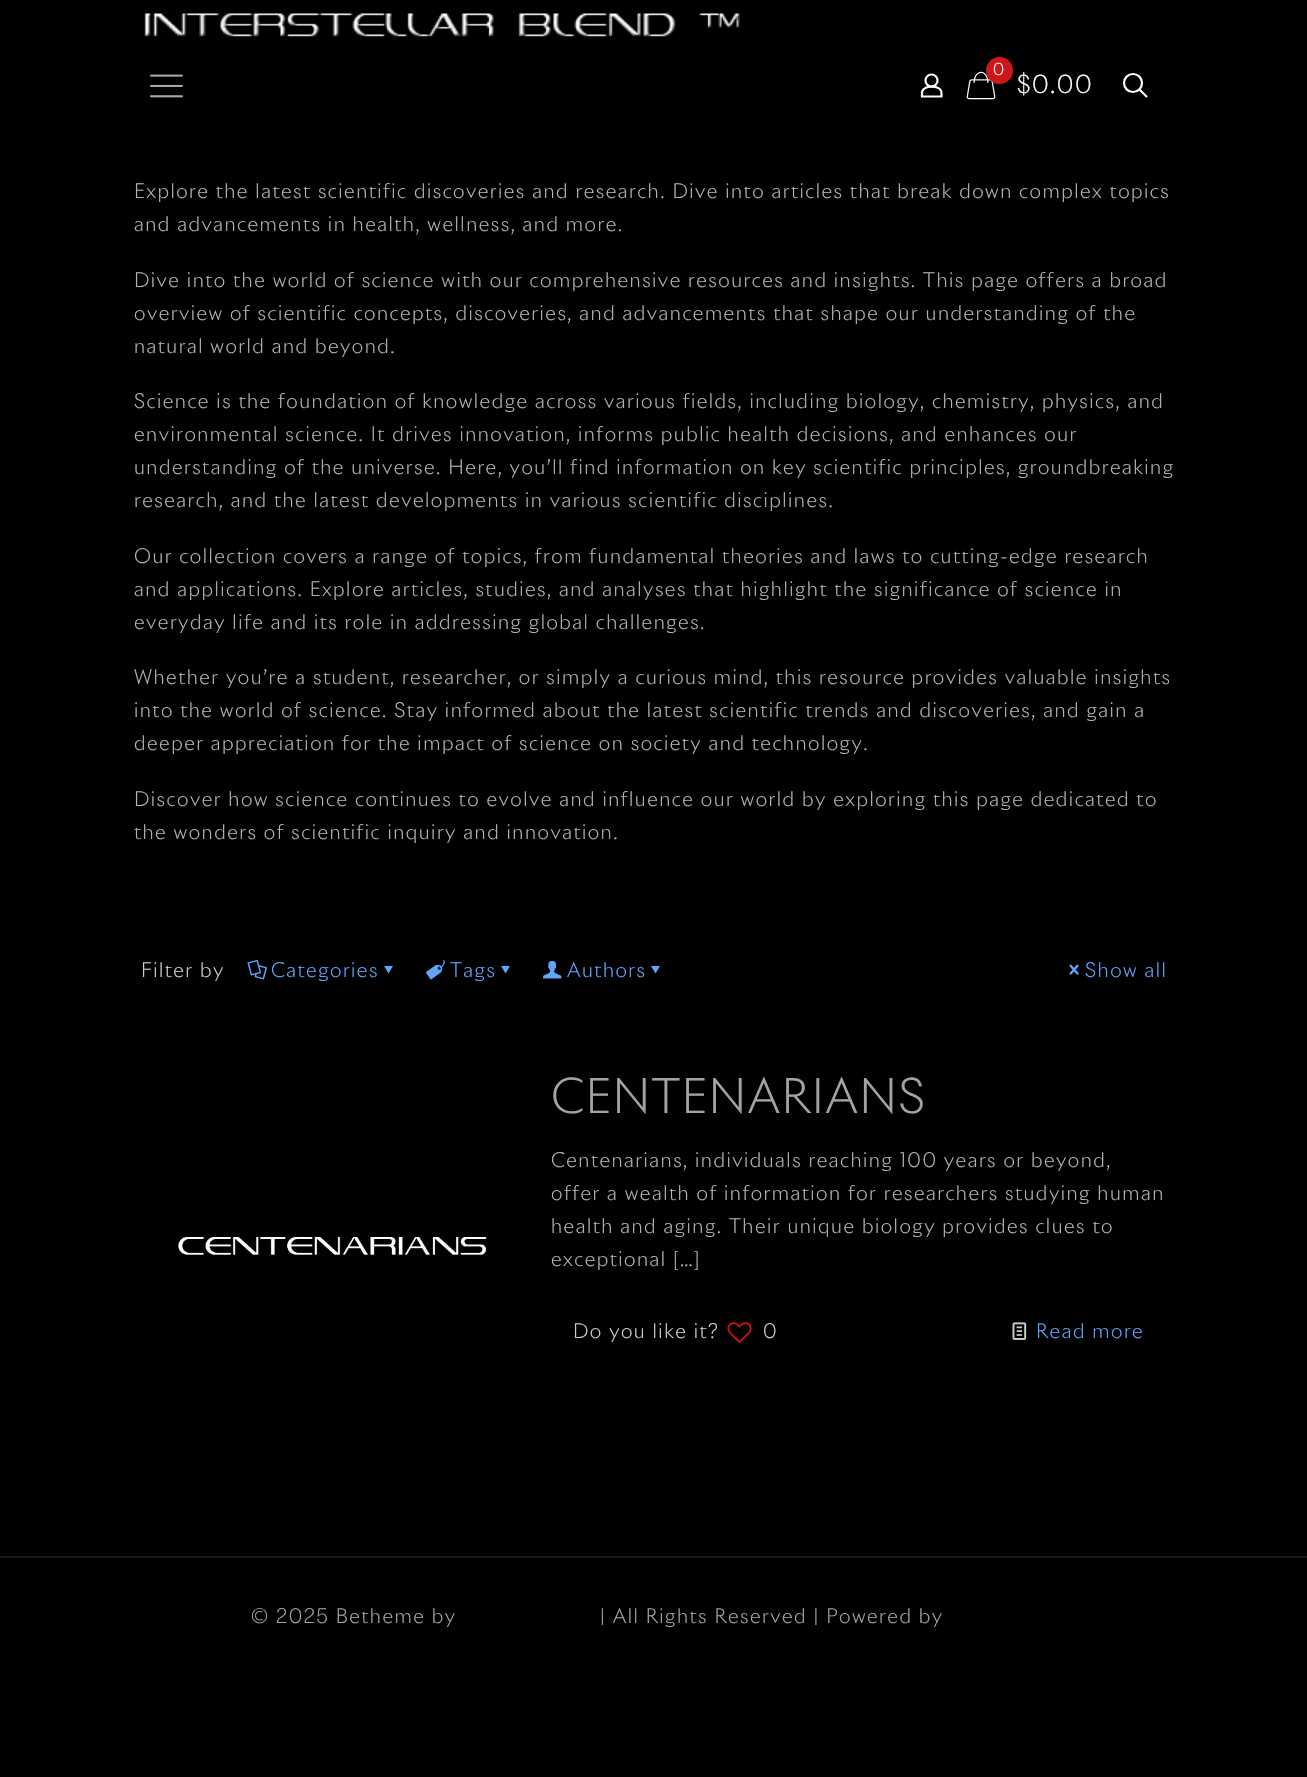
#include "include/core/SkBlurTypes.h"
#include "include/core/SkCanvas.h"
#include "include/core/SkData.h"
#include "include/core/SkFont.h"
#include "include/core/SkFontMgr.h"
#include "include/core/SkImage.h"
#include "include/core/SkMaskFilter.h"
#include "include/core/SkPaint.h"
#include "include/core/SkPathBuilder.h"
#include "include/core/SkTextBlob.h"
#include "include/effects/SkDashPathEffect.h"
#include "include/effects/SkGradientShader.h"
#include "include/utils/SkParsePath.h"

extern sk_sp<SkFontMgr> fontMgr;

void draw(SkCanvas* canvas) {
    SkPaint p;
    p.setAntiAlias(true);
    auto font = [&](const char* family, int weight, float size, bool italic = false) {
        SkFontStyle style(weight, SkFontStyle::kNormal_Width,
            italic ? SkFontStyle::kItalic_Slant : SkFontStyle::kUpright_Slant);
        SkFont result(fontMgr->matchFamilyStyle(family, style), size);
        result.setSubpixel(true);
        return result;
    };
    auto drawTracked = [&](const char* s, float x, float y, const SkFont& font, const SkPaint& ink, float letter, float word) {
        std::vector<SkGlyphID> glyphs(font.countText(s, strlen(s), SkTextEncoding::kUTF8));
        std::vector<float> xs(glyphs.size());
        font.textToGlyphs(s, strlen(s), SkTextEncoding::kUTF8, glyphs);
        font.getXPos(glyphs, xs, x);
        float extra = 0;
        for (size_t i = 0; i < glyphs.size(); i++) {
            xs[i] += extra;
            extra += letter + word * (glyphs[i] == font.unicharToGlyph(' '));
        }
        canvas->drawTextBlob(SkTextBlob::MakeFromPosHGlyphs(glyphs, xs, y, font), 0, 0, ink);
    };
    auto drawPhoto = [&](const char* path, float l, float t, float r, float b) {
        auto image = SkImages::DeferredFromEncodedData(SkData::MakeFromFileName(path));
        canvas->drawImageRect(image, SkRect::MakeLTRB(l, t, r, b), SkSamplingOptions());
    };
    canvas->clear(0xFF000000);
    drawPhoto("media/1.png", 144, 13, 740, 37);
    drawPhoto("media/2.png", 150, 74, 183, 98);
    p.setStyle(SkPaint::kStroke_Style);
    p.setStrokeWidth(2.2f);
    p.setColor(0xFFFCFCFC);
    canvas->drawCircle(931.5f, 80.5f, 6, p);
    canvas->drawPath(SkPathBuilder().moveTo(941.5f, 93).lineTo(941.5f, 96.5f).lineTo(922, 96.5f).lineTo(922, 92).cubicTo(924, 84.5f, 941.5f, 85, 941.5f, 93).close().detach(), p);
    drawPhoto("media/3.png", 966, 71, 996, 100);
    p.setStyle(SkPaint::kFill_Style);
    p.setColor(0xFFCD1719);
    canvas->drawCircle(999.5f, 70.5f, 13.5f, p);
    auto font1 = font("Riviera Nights", 300, 16);
    p.setColor(0xFFFCFCFC);
    drawTracked("0", 993, 75, font1, p, 1.5f, 0);
    auto font2 = font("Riviera Nights", 300, 24);
    drawTracked("$0.00", 1017, 93, font2, p, 1.5f, 0);
    p.setStyle(SkPaint::kStroke_Style);
    canvas->drawCircle(1133, 83, 9, p);
    canvas->drawPath(SkPathBuilder().moveTo(1139.5f, 89.5f).lineTo(1147, 97).detach(), p);
    auto font3 = font("Riviera Nights", 300, 19.5f);
    p.setStyle(SkPaint::kFill_Style);
    p.setColor(0xFFB2B2B2);
    {
        const struct { const char* s; float x, y; } items[] = {
            {"Explore the latest scientific discoveries and research. Dive into articles that break down complex topics", 134, 198},
            {"and advancements in health, wellness, and more.", 134, 231},
            {"Dive into the world of science with our comprehensive resources and insights. This page offers a broad", 134, 287},
            {"overview of scientific concepts, discoveries, and advancements that shape our understanding of the", 134, 320},
            {"natural world and beyond.", 134, 353},
            {"Science is the foundation of knowledge across various fields, including biology, chemistry, physics, and", 134, 408},
            {"environmental science. It drives innovation, informs public health decisions, and enhances our", 134, 441},
            {"understanding of the universe. Here, you’ll find information on key scientific principles, groundbreaking", 134, 474},
            {"research, and the latest developments in various scientific disciplines.", 134, 507},
            {"Our collection covers a range of topics, from fundamental theories and laws to cutting-edge research", 134, 563},
            {"and applications. Explore articles, studies, and analyses that highlight the significance of science in", 134, 596},
            {"everyday life and its role in addressing global challenges.", 134, 629},
            {"Whether you’re a student, researcher, or simply a curious mind, this resource provides valuable insights", 134, 684},
            {"into the world of science. Stay informed about the latest scientific trends and discoveries, and gain a", 134, 717},
            {"deeper appreciation for the impact of science on society and technology.", 134, 750},
            {"Discover how science continues to evolve and influence our world by exploring this page dedicated to", 134, 806},
            {"the wonders of scientific inquiry and innovation.", 134, 839},
        };
        for (auto [s, x, y] : items) {
            drawTracked(s, x, y, font3, p, 1.5f, 0);
        }
    }
    p.setColor(0xFFCCCBCB);
    drawTracked("Filter by", 141, 977, font3, p, 1.5f, 0);
    drawPhoto("media/4.png", 247, 959, 267, 980);
    p.setColor(0xFF60A5FA);
    drawTracked("Categories", 271, 977, font3, p, 1.5f, 0);
    canvas->drawPath(SkPathBuilder().moveTo(393, 966).lineTo(388.5f, 973.5f).lineTo(384, 966).close().detach(), p);
    drawPhoto("media/5.png", 426, 959, 445, 980);
    drawTracked("Tags", 450, 977, font3, p, 1.5f, 0);
    canvas->drawPath(SkPathBuilder().moveTo(510, 966).lineTo(505.5f, 973.5f).lineTo(501, 966).close().detach(), p);
    drawPhoto("media/6.png", 543, 960, 562, 979);
    drawTracked("Authors", 567, 977, font3, p, 1.5f, 0);
    canvas->drawPath(SkPathBuilder().moveTo(660, 966).lineTo(655.5f, 973.5f).lineTo(651, 966).close().detach(), p);
    drawPhoto("media/7.png", 1069, 964, 1079, 975);
    drawTracked("Show all", 1085, 977, font3, p, 1.5f, 0);
    drawPhoto("media/8.png", 176, 1236, 487, 1256);
    auto font4 = font("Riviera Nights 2", 300, 46.5f);
    p.setColor(0xFFA4A2A2);
    drawTracked("CENTENARIANS", 551, 1113, font4, p, 1.5f, 0);
    p.setColor(0xFFB2B2B2);
    {
        const struct { const char* s; float x, y; } items[] = {
            {"Centenarians, individuals reaching 100 years or beyond,", 551, 1167},
            {"offer a wealth of information for researchers studying human", 551, 1200},
            {"health and aging. Their unique biology provides clues to", 551, 1233},
            {"exceptional […]", 551, 1266},
        };
        for (auto [s, x, y] : items) {
            drawTracked(s, x, y, font3, p, 1.5f, 0);
        }
    }
    p.setColor(0xFFCCCBCB);
    drawTracked("Do you like it?", 573, 1338, font3, p, 1.5f, 0);
    drawPhoto("media/9.png", 727, 1322, 752, 1343);
    drawTracked("0", 763, 1338, font3, p, 1.5f, 0);
    drawPhoto("media/10.png", 1012, 1322, 1027, 1340);
    p.setColor(0xFF60A5FA);
    drawTracked("Read more", 1036, 1338, font3, p, 1.5f, 0);
    p.setColor(0xFF1A1A1A);
    canvas->drawRect(SkRect::MakeLTRB(0, 1556, 1307, 1558), p);
    p.setColor(0xFFA4A2A2);
    drawTracked("© 2025 Betheme by", 251, 1623, font3, p, 1.5f, 0);
    drawTracked("| All Rights Reserved | Powered by", 600, 1623, font3, p, 1.5f, 0);
}
